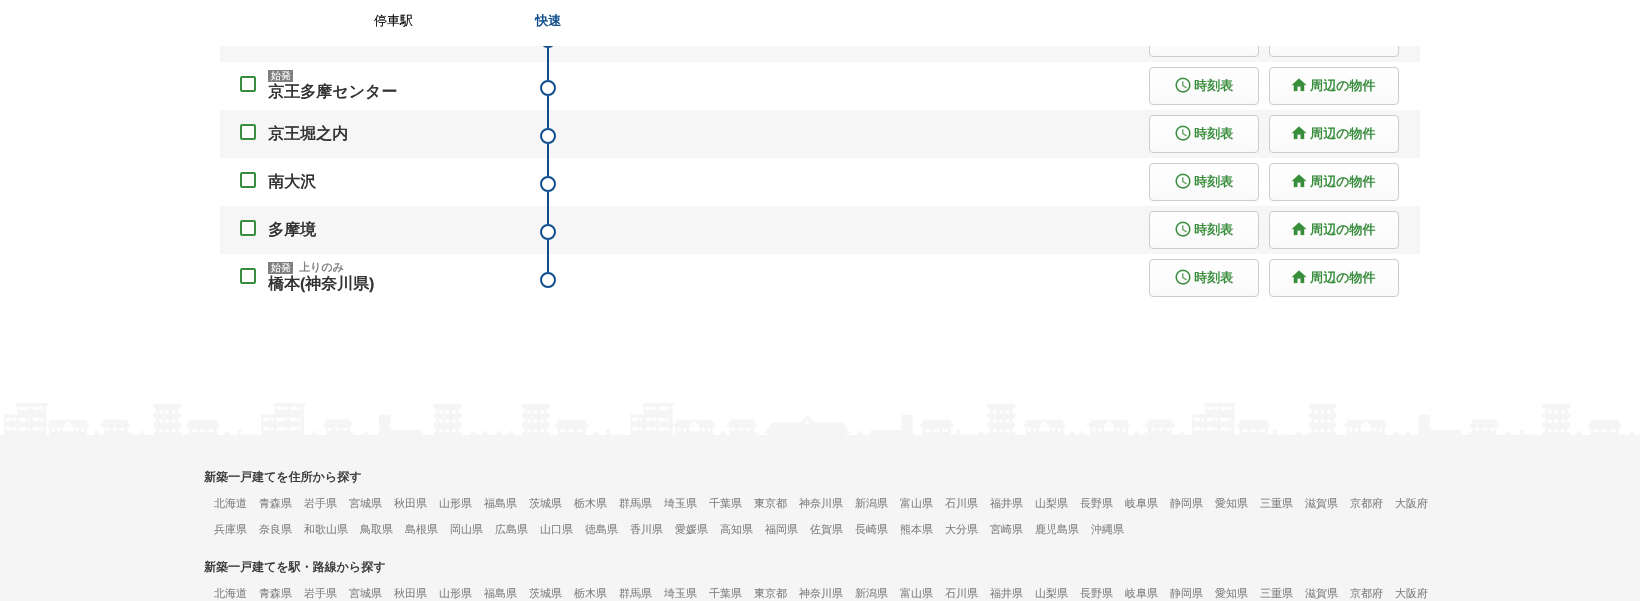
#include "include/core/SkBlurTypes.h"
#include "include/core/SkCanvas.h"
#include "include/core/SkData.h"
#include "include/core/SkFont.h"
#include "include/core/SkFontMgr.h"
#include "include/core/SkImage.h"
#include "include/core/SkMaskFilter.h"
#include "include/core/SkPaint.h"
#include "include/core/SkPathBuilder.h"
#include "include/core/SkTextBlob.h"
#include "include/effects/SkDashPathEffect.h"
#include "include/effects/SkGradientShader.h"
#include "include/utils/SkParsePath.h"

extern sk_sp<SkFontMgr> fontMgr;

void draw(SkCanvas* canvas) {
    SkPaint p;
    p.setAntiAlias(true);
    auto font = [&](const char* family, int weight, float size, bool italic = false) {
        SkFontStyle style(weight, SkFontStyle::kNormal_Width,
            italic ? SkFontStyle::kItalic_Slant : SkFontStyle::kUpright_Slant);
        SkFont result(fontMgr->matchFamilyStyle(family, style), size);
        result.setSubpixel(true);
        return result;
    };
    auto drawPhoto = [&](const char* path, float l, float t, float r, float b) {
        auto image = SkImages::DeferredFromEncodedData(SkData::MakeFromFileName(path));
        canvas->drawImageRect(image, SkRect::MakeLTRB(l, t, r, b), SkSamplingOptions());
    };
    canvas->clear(0xFFFFFFFF);
    p.setColor(0xFFF6F6F6);
    canvas->drawRect(SkRect::MakeLTRB(220, 46, 1420, 62), p);
    p.setStyle(SkPaint::kStroke_Style);
    p.setStrokeWidth(2);
    p.setColor(0xFF0F4E8C);
    canvas->drawCircle(548, 40, 7, p);
    canvas->save();
    canvas->clipPath(SkPathBuilder().moveTo(1153, 19).lineTo(1255, 19).cubicTo(1257, 19, 1259, 21, 1259, 23).lineTo(1259, 53).cubicTo(1259, 55, 1257, 57, 1255, 57).lineTo(1153, 57).cubicTo(1151, 57, 1149, 55, 1149, 53).lineTo(1149, 23).cubicTo(1149, 21, 1151, 19, 1153, 19).close().detach(), true);
    p.setStyle(SkPaint::kFill_Style);
    {
        const SkColor colors[] = {0xFFFFFFFF, 0xFFFAFAFA};
        const float stops[] = {0, 1};
        const SkPoint ends[] = {{1204, 20}, {1204, 56}};
        p.setShader(SkGradientShader::MakeLinear(ends, colors, stops, 2, SkTileMode::kClamp));
        p.setAlpha(255);
    }
    canvas->drawRect(SkRect::MakeLTRB(1149, 46, 1259, 56), p);
    canvas->restore();
    p.setStyle(SkPaint::kStroke_Style);
    p.setStrokeWidth(1);
    p.setShader(nullptr);
    p.setColor(0xFFCCCCCC);
    canvas->drawRoundRect(SkRect::MakeLTRB(1149.5f, 19.5f, 1258.5f, 56.5f), 3.5f, 3.5f, p);
    canvas->save();
    canvas->clipPath(SkPathBuilder().moveTo(1273, 19).lineTo(1395, 19).cubicTo(1397, 19, 1399, 21, 1399, 23).lineTo(1399, 53).cubicTo(1399, 55, 1397, 57, 1395, 57).lineTo(1273, 57).cubicTo(1271, 57, 1269, 55, 1269, 53).lineTo(1269, 23).cubicTo(1269, 21, 1271, 19, 1273, 19).close().detach(), true);
    p.setStyle(SkPaint::kFill_Style);
    {
        const SkColor colors[] = {0xFFFFFFFF, 0xFFFAFAFA};
        const float stops[] = {0, 1};
        const SkPoint ends[] = {{1334, 20}, {1334, 56}};
        p.setShader(SkGradientShader::MakeLinear(ends, colors, stops, 2, SkTileMode::kClamp));
        p.setAlpha(255);
    }
    canvas->drawRect(SkRect::MakeLTRB(1269, 46, 1399, 56), p);
    canvas->restore();
    p.setStyle(SkPaint::kStroke_Style);
    p.setShader(nullptr);
    p.setColor(0xFFCCCCCC);
    canvas->drawRoundRect(SkRect::MakeLTRB(1269.5f, 19.5f, 1398.5f, 56.5f), 3.5f, 3.5f, p);
    p.setStyle(SkPaint::kFill_Style);
    p.setColor(0xFFFFFFFF);
    canvas->drawRect(SkRect::MakeLTRB(540, 19, 1399, 46), p);
    auto font1 = font("WenQuanYi Zen Hei", 500, 13);
    p.setColor(0xFF000000);
    canvas->drawString("停車駅", 374, 25, font1, p);
    auto font2 = font("WenQuanYi Zen Hei", 700, 13);
    p.setColor(0xFF0F4E8C);
    canvas->drawString("快速", 535, 25, font2, p);
    canvas->drawRect(SkRect::MakeLTRB(547, 48, 549, 80), p);
    p.setStyle(SkPaint::kStroke_Style);
    p.setStrokeWidth(2);
    p.setColor(0xFF388E3C);
    canvas->drawRoundRect(SkRect::MakeLTRB(241, 77, 255, 91), 1, 1, p);
    p.setStyle(SkPaint::kFill_Style);
    p.setColor(0xFF808080);
    canvas->drawRect(SkRect::MakeLTRB(268, 70, 293, 82), p);
    auto font3 = font("WenQuanYi Zen Hei", 500, 10);
    p.setColor(0xFFFFFFFF);
    canvas->drawString("始発", 271, 79, font3, p);
    auto font4 = font("WenQuanYi Zen Hei", 700, 16);
    p.setColor(0xFF333333);
    canvas->drawString("京王多摩センター", 268, 97, font4, p);
    p.setStyle(SkPaint::kStroke_Style);
    p.setColor(0xFF0F4E8C);
    canvas->drawCircle(548, 88, 7, p);
    p.setStyle(SkPaint::kFill_Style);
    p.setColor(0xFFF6F6F6);
    canvas->drawRect(SkRect::MakeLTRB(220, 110, 1420, 158), p);
    p.setColor(0xFF0F4E8C);
    canvas->drawRect(SkRect::MakeLTRB(547, 96, 549, 128), p);
    canvas->save();
    canvas->clipPath(SkPathBuilder().moveTo(1153, 67).lineTo(1255, 67).cubicTo(1257, 67, 1259, 69, 1259, 71).lineTo(1259, 101).cubicTo(1259, 103, 1257, 105, 1255, 105).lineTo(1153, 105).cubicTo(1151, 105, 1149, 103, 1149, 101).lineTo(1149, 71).cubicTo(1149, 69, 1151, 67, 1153, 67).close().detach(), true);
    {
        const SkColor colors[] = {0xFFFFFFFF, 0xFFFAFAFA};
        const float stops[] = {0, 1};
        const SkPoint ends[] = {{1204, 68}, {1204, 104}};
        p.setShader(SkGradientShader::MakeLinear(ends, colors, stops, 2, SkTileMode::kClamp));
        p.setAlpha(255);
    }
    canvas->drawRect(SkRect::MakeLTRB(1149, 68, 1259, 104), p);
    canvas->restore();
    p.setStyle(SkPaint::kStroke_Style);
    p.setStrokeWidth(1);
    p.setShader(nullptr);
    p.setColor(0xFFCCCCCC);
    canvas->drawRoundRect(SkRect::MakeLTRB(1149.5f, 67.5f, 1258.5f, 104.5f), 3.5f, 3.5f, p);
    drawPhoto("media/1.png", 1175, 77, 1191, 93);
    p.setStyle(SkPaint::kFill_Style);
    p.setColor(0xFF388E3C);
    canvas->drawString("時刻表", 1194, 90, font2, p);
    canvas->save();
    canvas->clipPath(SkPathBuilder().moveTo(1273, 67).lineTo(1395, 67).cubicTo(1397, 67, 1399, 69, 1399, 71).lineTo(1399, 101).cubicTo(1399, 103, 1397, 105, 1395, 105).lineTo(1273, 105).cubicTo(1271, 105, 1269, 103, 1269, 101).lineTo(1269, 71).cubicTo(1269, 69, 1271, 67, 1273, 67).close().detach(), true);
    {
        const SkColor colors[] = {0xFFFFFFFF, 0xFFFAFAFA};
        const float stops[] = {0, 1};
        const SkPoint ends[] = {{1334, 68}, {1334, 104}};
        p.setShader(SkGradientShader::MakeLinear(ends, colors, stops, 2, SkTileMode::kClamp));
        p.setAlpha(255);
    }
    canvas->drawRect(SkRect::MakeLTRB(1269, 68, 1399, 104), p);
    canvas->restore();
    p.setStyle(SkPaint::kStroke_Style);
    p.setShader(nullptr);
    p.setColor(0xFFCCCCCC);
    canvas->drawRoundRect(SkRect::MakeLTRB(1269.5f, 67.5f, 1398.5f, 104.5f), 3.5f, 3.5f, p);
    drawPhoto("media/2.png", 1291, 78, 1307, 92);
    p.setStyle(SkPaint::kFill_Style);
    p.setColor(0xFF388E3C);
    canvas->drawString("周辺の物件", 1310, 90, font2, p);
    p.setColor(0xFFFFFFFF);
    canvas->drawRoundRect(SkRect::MakeLTRB(241, 125, 255, 139), 1, 1, p);
    p.setStyle(SkPaint::kStroke_Style);
    p.setStrokeWidth(2);
    p.setColor(0xFF388E3C);
    canvas->drawRoundRect(SkRect::MakeLTRB(241, 125, 255, 139), 1, 1, p);
    p.setStyle(SkPaint::kFill_Style);
    p.setColor(0xFF333333);
    canvas->drawString("京王堀之内", 268, 139, font4, p);
    p.setColor(0xFFFFFFFF);
    canvas->drawCircle(548, 136, 7, p);
    p.setStyle(SkPaint::kStroke_Style);
    p.setColor(0xFF0F4E8C);
    canvas->drawCircle(548, 136, 7, p);
    p.setStyle(SkPaint::kFill_Style);
    canvas->drawRect(SkRect::MakeLTRB(547, 144, 549, 176), p);
    canvas->save();
    canvas->clipPath(SkPathBuilder().moveTo(1153, 115).lineTo(1255, 115).cubicTo(1257, 115, 1259, 117, 1259, 119).lineTo(1259, 149).cubicTo(1259, 151, 1257, 153, 1255, 153).lineTo(1153, 153).cubicTo(1151, 153, 1149, 151, 1149, 149).lineTo(1149, 119).cubicTo(1149, 117, 1151, 115, 1153, 115).close().detach(), true);
    {
        const SkColor colors[] = {0xFFFFFFFF, 0xFFFAFAFA};
        const float stops[] = {0, 1};
        const SkPoint ends[] = {{1204, 116}, {1204, 152}};
        p.setShader(SkGradientShader::MakeLinear(ends, colors, stops, 2, SkTileMode::kClamp));
        p.setAlpha(255);
    }
    canvas->drawRect(SkRect::MakeLTRB(1149, 116, 1259, 152), p);
    canvas->restore();
    p.setStyle(SkPaint::kStroke_Style);
    p.setStrokeWidth(1);
    p.setShader(nullptr);
    p.setColor(0xFFCCCCCC);
    canvas->drawRoundRect(SkRect::MakeLTRB(1149.5f, 115.5f, 1258.5f, 152.5f), 3.5f, 3.5f, p);
    drawPhoto("media/1.png", 1175, 125, 1191, 141);
    p.setStyle(SkPaint::kFill_Style);
    p.setColor(0xFF388E3C);
    canvas->drawString("時刻表", 1194, 138, font2, p);
    canvas->save();
    canvas->clipPath(SkPathBuilder().moveTo(1273, 115).lineTo(1395, 115).cubicTo(1397, 115, 1399, 117, 1399, 119).lineTo(1399, 149).cubicTo(1399, 151, 1397, 153, 1395, 153).lineTo(1273, 153).cubicTo(1271, 153, 1269, 151, 1269, 149).lineTo(1269, 119).cubicTo(1269, 117, 1271, 115, 1273, 115).close().detach(), true);
    {
        const SkColor colors[] = {0xFFFFFFFF, 0xFFFAFAFA};
        const float stops[] = {0, 1};
        const SkPoint ends[] = {{1334, 116}, {1334, 152}};
        p.setShader(SkGradientShader::MakeLinear(ends, colors, stops, 2, SkTileMode::kClamp));
        p.setAlpha(255);
    }
    canvas->drawRect(SkRect::MakeLTRB(1269, 116, 1399, 152), p);
    canvas->restore();
    p.setStyle(SkPaint::kStroke_Style);
    p.setShader(nullptr);
    p.setColor(0xFFCCCCCC);
    canvas->drawRoundRect(SkRect::MakeLTRB(1269.5f, 115.5f, 1398.5f, 152.5f), 3.5f, 3.5f, p);
    drawPhoto("media/2.png", 1291, 126, 1307, 140);
    p.setStyle(SkPaint::kFill_Style);
    p.setColor(0xFF388E3C);
    canvas->drawString("周辺の物件", 1310, 138, font2, p);
    p.setStyle(SkPaint::kStroke_Style);
    p.setStrokeWidth(2);
    canvas->drawRoundRect(SkRect::MakeLTRB(241, 173, 255, 187), 1, 1, p);
    p.setStyle(SkPaint::kFill_Style);
    p.setColor(0xFF333333);
    canvas->drawString("南大沢", 268, 187, font4, p);
    p.setStyle(SkPaint::kStroke_Style);
    p.setColor(0xFF0F4E8C);
    canvas->drawCircle(548, 184, 7, p);
    p.setStyle(SkPaint::kFill_Style);
    p.setColor(0xFFF6F6F6);
    canvas->drawRect(SkRect::MakeLTRB(220, 206, 1420, 254), p);
    p.setColor(0xFF0F4E8C);
    canvas->drawRect(SkRect::MakeLTRB(547, 192, 549, 224), p);
    canvas->save();
    canvas->clipPath(SkPathBuilder().moveTo(1153, 163).lineTo(1255, 163).cubicTo(1257, 163, 1259, 165, 1259, 167).lineTo(1259, 197).cubicTo(1259, 199, 1257, 201, 1255, 201).lineTo(1153, 201).cubicTo(1151, 201, 1149, 199, 1149, 197).lineTo(1149, 167).cubicTo(1149, 165, 1151, 163, 1153, 163).close().detach(), true);
    {
        const SkColor colors[] = {0xFFFFFFFF, 0xFFFAFAFA};
        const float stops[] = {0, 1};
        const SkPoint ends[] = {{1204, 164}, {1204, 200}};
        p.setShader(SkGradientShader::MakeLinear(ends, colors, stops, 2, SkTileMode::kClamp));
        p.setAlpha(255);
    }
    canvas->drawRect(SkRect::MakeLTRB(1149, 164, 1259, 200), p);
    canvas->restore();
    p.setStyle(SkPaint::kStroke_Style);
    p.setStrokeWidth(1);
    p.setShader(nullptr);
    p.setColor(0xFFCCCCCC);
    canvas->drawRoundRect(SkRect::MakeLTRB(1149.5f, 163.5f, 1258.5f, 200.5f), 3.5f, 3.5f, p);
    drawPhoto("media/1.png", 1175, 173, 1191, 189);
    p.setStyle(SkPaint::kFill_Style);
    p.setColor(0xFF388E3C);
    canvas->drawString("時刻表", 1194, 186, font2, p);
    canvas->save();
    canvas->clipPath(SkPathBuilder().moveTo(1273, 163).lineTo(1395, 163).cubicTo(1397, 163, 1399, 165, 1399, 167).lineTo(1399, 197).cubicTo(1399, 199, 1397, 201, 1395, 201).lineTo(1273, 201).cubicTo(1271, 201, 1269, 199, 1269, 197).lineTo(1269, 167).cubicTo(1269, 165, 1271, 163, 1273, 163).close().detach(), true);
    {
        const SkColor colors[] = {0xFFFFFFFF, 0xFFFAFAFA};
        const float stops[] = {0, 1};
        const SkPoint ends[] = {{1334, 164}, {1334, 200}};
        p.setShader(SkGradientShader::MakeLinear(ends, colors, stops, 2, SkTileMode::kClamp));
        p.setAlpha(255);
    }
    canvas->drawRect(SkRect::MakeLTRB(1269, 164, 1399, 200), p);
    canvas->restore();
    p.setStyle(SkPaint::kStroke_Style);
    p.setShader(nullptr);
    p.setColor(0xFFCCCCCC);
    canvas->drawRoundRect(SkRect::MakeLTRB(1269.5f, 163.5f, 1398.5f, 200.5f), 3.5f, 3.5f, p);
    drawPhoto("media/2.png", 1291, 174, 1307, 188);
    p.setStyle(SkPaint::kFill_Style);
    p.setColor(0xFF388E3C);
    canvas->drawString("周辺の物件", 1310, 186, font2, p);
    p.setColor(0xFFFFFFFF);
    canvas->drawRoundRect(SkRect::MakeLTRB(241, 221, 255, 235), 1, 1, p);
    p.setStyle(SkPaint::kStroke_Style);
    p.setStrokeWidth(2);
    p.setColor(0xFF388E3C);
    canvas->drawRoundRect(SkRect::MakeLTRB(241, 221, 255, 235), 1, 1, p);
    p.setStyle(SkPaint::kFill_Style);
    p.setColor(0xFF333333);
    canvas->drawString("多摩境", 268, 235, font4, p);
    p.setColor(0xFFFFFFFF);
    canvas->drawCircle(548, 232, 7, p);
    p.setStyle(SkPaint::kStroke_Style);
    p.setColor(0xFF0F4E8C);
    canvas->drawCircle(548, 232, 7, p);
    p.setStyle(SkPaint::kFill_Style);
    canvas->drawRect(SkRect::MakeLTRB(547, 240, 549, 272), p);
    canvas->save();
    canvas->clipPath(SkPathBuilder().moveTo(1153, 211).lineTo(1255, 211).cubicTo(1257, 211, 1259, 213, 1259, 215).lineTo(1259, 245).cubicTo(1259, 247, 1257, 249, 1255, 249).lineTo(1153, 249).cubicTo(1151, 249, 1149, 247, 1149, 245).lineTo(1149, 215).cubicTo(1149, 213, 1151, 211, 1153, 211).close().detach(), true);
    {
        const SkColor colors[] = {0xFFFFFFFF, 0xFFFAFAFA};
        const float stops[] = {0, 1};
        const SkPoint ends[] = {{1204, 212}, {1204, 248}};
        p.setShader(SkGradientShader::MakeLinear(ends, colors, stops, 2, SkTileMode::kClamp));
        p.setAlpha(255);
    }
    canvas->drawRect(SkRect::MakeLTRB(1149, 212, 1259, 248), p);
    canvas->restore();
    p.setStyle(SkPaint::kStroke_Style);
    p.setStrokeWidth(1);
    p.setShader(nullptr);
    p.setColor(0xFFCCCCCC);
    canvas->drawRoundRect(SkRect::MakeLTRB(1149.5f, 211.5f, 1258.5f, 248.5f), 3.5f, 3.5f, p);
    drawPhoto("media/1.png", 1175, 221, 1191, 237);
    p.setStyle(SkPaint::kFill_Style);
    p.setColor(0xFF388E3C);
    canvas->drawString("時刻表", 1194, 234, font2, p);
    canvas->save();
    canvas->clipPath(SkPathBuilder().moveTo(1273, 211).lineTo(1395, 211).cubicTo(1397, 211, 1399, 213, 1399, 215).lineTo(1399, 245).cubicTo(1399, 247, 1397, 249, 1395, 249).lineTo(1273, 249).cubicTo(1271, 249, 1269, 247, 1269, 245).lineTo(1269, 215).cubicTo(1269, 213, 1271, 211, 1273, 211).close().detach(), true);
    {
        const SkColor colors[] = {0xFFFFFFFF, 0xFFFAFAFA};
        const float stops[] = {0, 1};
        const SkPoint ends[] = {{1334, 212}, {1334, 248}};
        p.setShader(SkGradientShader::MakeLinear(ends, colors, stops, 2, SkTileMode::kClamp));
        p.setAlpha(255);
    }
    canvas->drawRect(SkRect::MakeLTRB(1269, 212, 1399, 248), p);
    canvas->restore();
    p.setStyle(SkPaint::kStroke_Style);
    p.setShader(nullptr);
    p.setColor(0xFFCCCCCC);
    canvas->drawRoundRect(SkRect::MakeLTRB(1269.5f, 211.5f, 1398.5f, 248.5f), 3.5f, 3.5f, p);
    drawPhoto("media/2.png", 1291, 222, 1307, 236);
    p.setStyle(SkPaint::kFill_Style);
    p.setColor(0xFF388E3C);
    canvas->drawString("周辺の物件", 1310, 234, font2, p);
    p.setStyle(SkPaint::kStroke_Style);
    p.setStrokeWidth(2);
    canvas->drawRoundRect(SkRect::MakeLTRB(241, 269, 255, 283), 1, 1, p);
    p.setStyle(SkPaint::kFill_Style);
    p.setColor(0xFF808080);
    canvas->drawRect(SkRect::MakeLTRB(268, 262, 293, 274), p);
    p.setColor(0xFFFFFFFF);
    canvas->drawString("始発", 271, 271, font3, p);
    auto font5 = font("WenQuanYi Zen Hei", 700, 11);
    p.setColor(0xFF808080);
    canvas->drawString("上りのみ", 299, 271, font5, p);
    p.setColor(0xFF333333);
    canvas->drawString("橋本", 268, 289, font4, p);
    auto font6 = font("Liberation Sans", 700, 16);
    canvas->drawString("(", 300, 289, font6, p);
    canvas->drawString("神奈川県", 305, 289, font4, p);
    canvas->drawString(")", 369, 289, font6, p);
    p.setStyle(SkPaint::kStroke_Style);
    p.setColor(0xFF0F4E8C);
    canvas->drawCircle(548, 280, 7, p);
    canvas->save();
    canvas->clipPath(SkPathBuilder().moveTo(1153, 259).lineTo(1255, 259).cubicTo(1257, 259, 1259, 261, 1259, 263).lineTo(1259, 293).cubicTo(1259, 295, 1257, 297, 1255, 297).lineTo(1153, 297).cubicTo(1151, 297, 1149, 295, 1149, 293).lineTo(1149, 263).cubicTo(1149, 261, 1151, 259, 1153, 259).close().detach(), true);
    p.setStyle(SkPaint::kFill_Style);
    {
        const SkColor colors[] = {0xFFFFFFFF, 0xFFFAFAFA};
        const float stops[] = {0, 1};
        const SkPoint ends[] = {{1204, 260}, {1204, 296}};
        p.setShader(SkGradientShader::MakeLinear(ends, colors, stops, 2, SkTileMode::kClamp));
        p.setAlpha(255);
    }
    canvas->drawRect(SkRect::MakeLTRB(1149, 260, 1259, 296), p);
    canvas->restore();
    p.setStyle(SkPaint::kStroke_Style);
    p.setStrokeWidth(1);
    p.setShader(nullptr);
    p.setColor(0xFFCCCCCC);
    canvas->drawRoundRect(SkRect::MakeLTRB(1149.5f, 259.5f, 1258.5f, 296.5f), 3.5f, 3.5f, p);
    drawPhoto("media/1.png", 1175, 269, 1191, 285);
    p.setStyle(SkPaint::kFill_Style);
    p.setColor(0xFF388E3C);
    canvas->drawString("時刻表", 1194, 282, font2, p);
    canvas->save();
    canvas->clipPath(SkPathBuilder().moveTo(1273, 259).lineTo(1395, 259).cubicTo(1397, 259, 1399, 261, 1399, 263).lineTo(1399, 293).cubicTo(1399, 295, 1397, 297, 1395, 297).lineTo(1273, 297).cubicTo(1271, 297, 1269, 295, 1269, 293).lineTo(1269, 263).cubicTo(1269, 261, 1271, 259, 1273, 259).close().detach(), true);
    {
        const SkColor colors[] = {0xFFFFFFFF, 0xFFFAFAFA};
        const float stops[] = {0, 1};
        const SkPoint ends[] = {{1334, 260}, {1334, 296}};
        p.setShader(SkGradientShader::MakeLinear(ends, colors, stops, 2, SkTileMode::kClamp));
        p.setAlpha(255);
    }
    canvas->drawRect(SkRect::MakeLTRB(1269, 260, 1399, 296), p);
    canvas->restore();
    p.setStyle(SkPaint::kStroke_Style);
    p.setShader(nullptr);
    p.setColor(0xFFCCCCCC);
    canvas->drawRoundRect(SkRect::MakeLTRB(1269.5f, 259.5f, 1398.5f, 296.5f), 3.5f, 3.5f, p);
    drawPhoto("media/2.png", 1291, 270, 1307, 284);
    p.setStyle(SkPaint::kFill_Style);
    p.setColor(0xFF388E3C);
    canvas->drawString("周辺の物件", 1310, 282, font2, p);
    p.setColor(0xFFF5F5F5);
    canvas->drawRect(SkRect::MakeLTRB(0, 435, 1640, 601), p);
    drawPhoto("media/3.png", 4, 403, 1635, 435);
    auto font7 = font("WenQuanYi Zen Hei", 700, 12);
    p.setColor(0xFF3C3C3C);
    canvas->drawString("新築一戸建てを住所から探す", 204, 481, font7, p);
    auto font8 = font("WenQuanYi Zen Hei", 500, 11);
    p.setColor(0xFF808080);
    {
        const struct { const char* s; float x, y; } items[] = {
            {"北海道", 214, 507},
            {"青森県", 259, 507},
            {"岩手県", 304, 507},
            {"宮城県", 349, 507},
            {"秋田県", 394, 507},
            {"山形県", 439, 507},
            {"福島県", 484, 507},
            {"茨城県", 529, 507},
            {"栃木県", 574, 507},
            {"群馬県", 619, 507},
            {"埼玉県", 664, 507},
            {"千葉県", 709, 507},
            {"東京都", 754, 507},
            {"神奈川県", 799, 507},
            {"新潟県", 855, 507},
            {"富山県", 900, 507},
            {"石川県", 945, 507},
            {"福井県", 990, 507},
            {"山梨県", 1035, 507},
            {"長野県", 1080, 507},
            {"岐阜県", 1125, 507},
            {"静岡県", 1170, 507},
            {"愛知県", 1215, 507},
            {"三重県", 1260, 507},
            {"滋賀県", 1305, 507},
            {"京都府", 1350, 507},
            {"大阪府", 1395, 507},
            {"兵庫県", 214, 533},
            {"奈良県", 259, 533},
            {"和歌山県", 304, 533},
            {"鳥取県", 360, 533},
            {"島根県", 405, 533},
            {"岡山県", 450, 533},
            {"広島県", 495, 533},
            {"山口県", 540, 533},
            {"徳島県", 585, 533},
            {"香川県", 630, 533},
            {"愛媛県", 675, 533},
            {"高知県", 720, 533},
            {"福岡県", 765, 533},
            {"佐賀県", 810, 533},
            {"長崎県", 855, 533},
            {"熊本県", 900, 533},
            {"大分県", 945, 533},
            {"宮崎県", 990, 533},
            {"鹿児島県", 1035, 533},
            {"沖縄県", 1091, 533},
        };
        for (auto [s, x, y] : items) {
            canvas->drawString(s, x, y, font8, p);
        }
    }
    p.setColor(0xFF3C3C3C);
    canvas->drawString("新築一戸建てを駅・路線から探す", 204, 571, font7, p);
    p.setColor(0xFF808080);
    {
        const struct { const char* s; float x, y; } items[] = {
            {"北海道", 214, 597},
            {"青森県", 259, 597},
            {"岩手県", 304, 597},
            {"宮城県", 349, 597},
            {"秋田県", 394, 597},
            {"山形県", 439, 597},
            {"福島県", 484, 597},
            {"茨城県", 529, 597},
            {"栃木県", 574, 597},
            {"群馬県", 619, 597},
            {"埼玉県", 664, 597},
            {"千葉県", 709, 597},
            {"東京都", 754, 597},
            {"神奈川県", 799, 597},
            {"新潟県", 855, 597},
            {"富山県", 900, 597},
            {"石川県", 945, 597},
            {"福井県", 990, 597},
            {"山梨県", 1035, 597},
            {"長野県", 1080, 597},
            {"岐阜県", 1125, 597},
            {"静岡県", 1170, 597},
            {"愛知県", 1215, 597},
            {"三重県", 1260, 597},
            {"滋賀県", 1305, 597},
            {"京都府", 1350, 597},
            {"大阪府", 1395, 597},
        };
        for (auto [s, x, y] : items) {
            canvas->drawString(s, x, y, font8, p);
        }
    }
}
